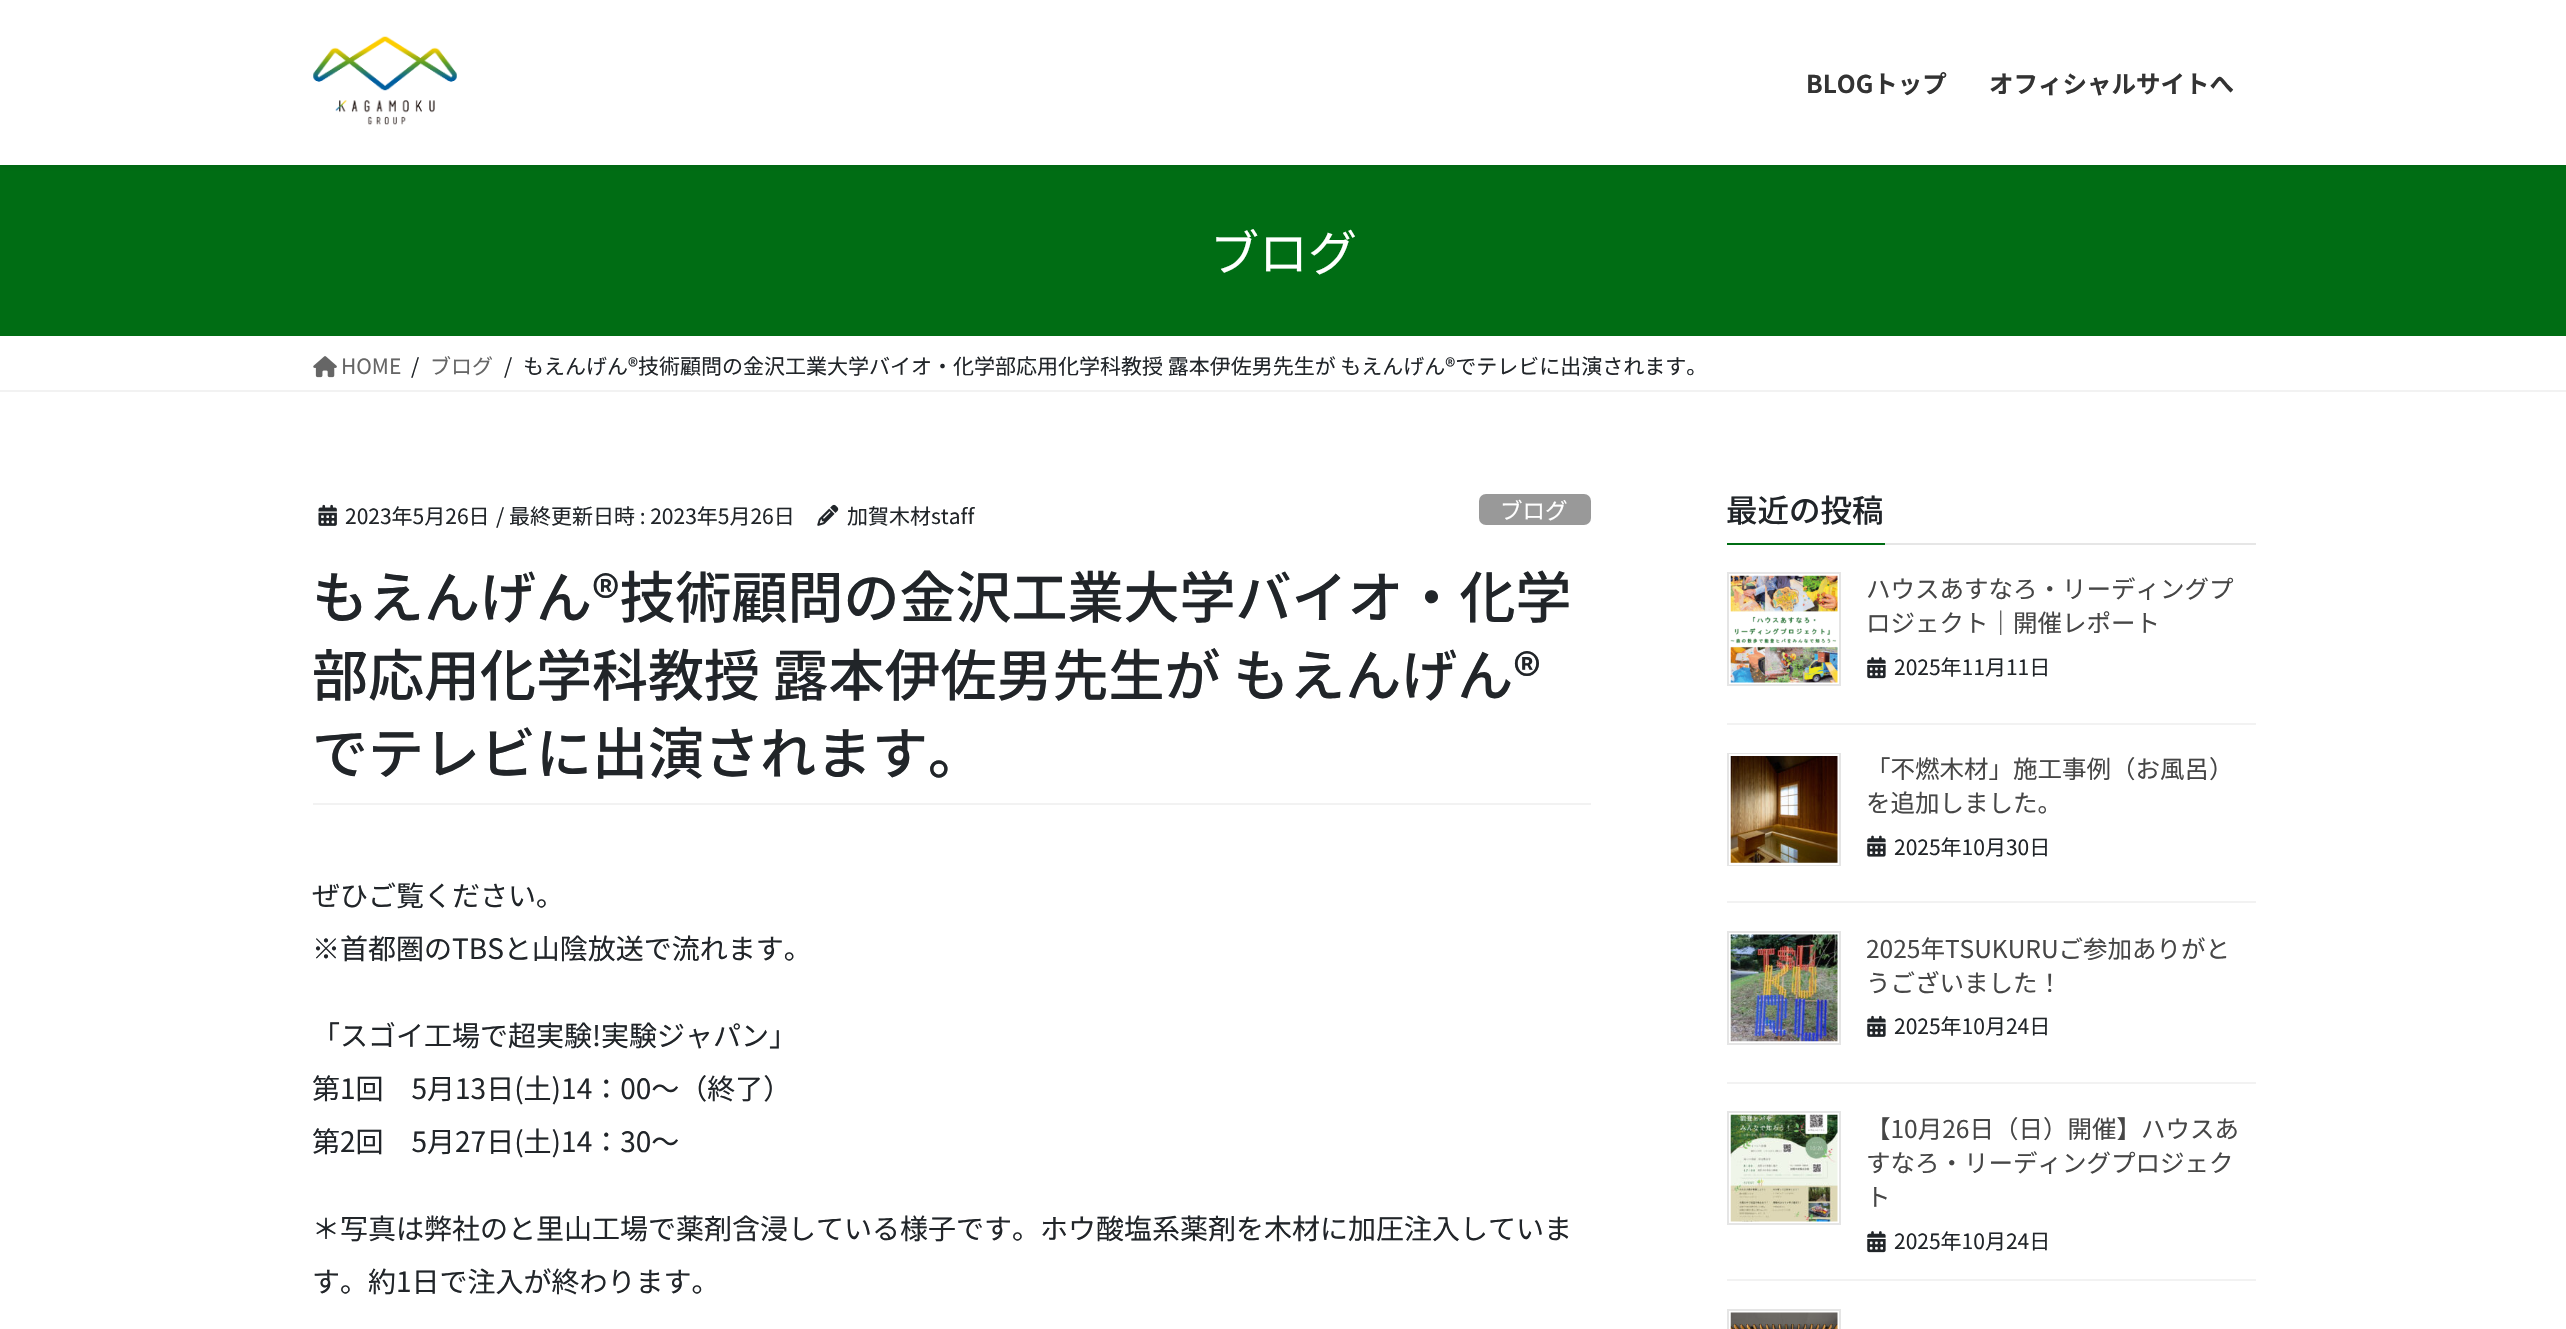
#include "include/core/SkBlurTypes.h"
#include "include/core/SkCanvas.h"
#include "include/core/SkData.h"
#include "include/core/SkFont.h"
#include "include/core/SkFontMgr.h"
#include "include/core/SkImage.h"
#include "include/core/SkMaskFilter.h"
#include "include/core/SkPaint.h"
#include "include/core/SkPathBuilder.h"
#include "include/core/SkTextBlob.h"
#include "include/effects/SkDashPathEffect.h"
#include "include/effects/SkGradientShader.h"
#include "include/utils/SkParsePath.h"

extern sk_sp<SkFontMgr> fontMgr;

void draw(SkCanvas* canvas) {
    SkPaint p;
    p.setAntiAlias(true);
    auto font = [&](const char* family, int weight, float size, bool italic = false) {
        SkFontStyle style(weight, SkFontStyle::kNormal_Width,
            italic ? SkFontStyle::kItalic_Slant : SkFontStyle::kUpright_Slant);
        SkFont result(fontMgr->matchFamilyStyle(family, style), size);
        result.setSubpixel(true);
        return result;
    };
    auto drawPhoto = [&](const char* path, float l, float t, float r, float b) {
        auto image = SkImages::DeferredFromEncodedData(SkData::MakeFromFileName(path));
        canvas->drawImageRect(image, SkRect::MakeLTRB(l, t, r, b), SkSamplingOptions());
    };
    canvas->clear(0xFFFFFFFF);
    p.setColor(0xFF006D14);
    canvas->drawRect(SkRect::MakeLTRB(0, 165, 2566, 336), p);
    p.setColor(0x1A000000);
    p.setMaskFilter(SkMaskFilter::MakeBlur(kNormal_SkBlurStyle, 2.5f));
    canvas->drawRect(SkRect::MakeLTRB(0, 2, 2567, 166), p);
    p.setMaskFilter(nullptr);
    p.setColor(0xFFFFFFFF);
    canvas->drawRect(SkRect::MakeLTRB(0, 0, 2566, 165), p);
    drawPhoto("media/1.png", 313, 36, 457, 125);
    auto font1 = font("Noto Sans JP", 700, 24.5f);
    p.setColor(0xFF333333);
    canvas->drawString("BLOGトップ", 1806, 93, font1, p);
    canvas->drawString("オフィシャルサイトへ", 1989, 93, font1, p);
    auto font2 = font("Noto Sans JP", 400, 49);
    p.setColor(0xFFFFFFFF);
    canvas->drawString("ブログ", 1210, 271, font2, p);
    p.setColor(0xFFF2F2F2);
    canvas->drawRect(SkRect::MakeLTRB(0, 390, 2566, 392), p);
    drawPhoto("media/2.png", 313, 356, 337, 378);
    auto font3 = font("Noto Sans JP", 400, 21);
    p.setColor(0xFF666666);
    canvas->drawString("HOME", 341, 374, font3, p);
    p.setColor(0xFF212529);
    canvas->drawString("/", 411, 374, font3, p);
    p.setColor(0xFF666666);
    canvas->drawString("ブログ", 430, 374, font3, p);
    p.setColor(0xFF212529);
    canvas->drawString("/", 504, 374, font3, p);
    canvas->drawString("もえんげん®技術顧問の金沢工業大学バイオ・化学部応用化学科教授 露本伊佐男先生が もえんげん®でテレビに出演されます。", 523, 374, font3, p);
    p.setColor(0xFFF2F2F2);
    canvas->drawRect(SkRect::MakeLTRB(313, 803, 1591, 805), p);
    drawPhoto("media/3.png", 318, 504, 337, 526);
    p.setColor(0xFF212529);
    canvas->drawString("2023年5月26日", 345, 524, font3, p);
    canvas->drawString("/ 最終更新日時 : 2023年5月26日", 496, 524, font3, p);
    drawPhoto("media/4.png", 817, 504, 839, 526);
    canvas->drawString("加賀木材staff", 847, 524, font3, p);
    p.setColor(0xFF999999);
    canvas->drawRoundRect(SkRect::MakeLTRB(1479, 494, 1591, 525), 7, 7, p);
    auto font4 = font("Noto Sans JP", 400, 22.5f);
    p.setColor(0xFFFFFFFF);
    canvas->drawString("ブログ", 1500, 519, font4, p);
    auto font5 = font("Noto Sans JP", 500, 56);
    p.setColor(0xFF212529);
    {
        const struct { const char* s; float x, y; } items[] = {
            {"もえんげん®技術顧問の金沢工業大学バイオ・化学", 312, 618},
            {"部応用化学科教授 露本伊佐男先生が もえんげん®", 312, 696},
            {"でテレビに出演されます。", 312, 774},
        };
        for (auto [s, x, y] : items) {
            canvas->drawString(s, x, y, font5, p);
        }
    }
    auto font6 = font("Noto Sans JP", 400, 28);
    {
        const struct { const char* s; float x, y; } items[] = {
            {"ぜひご覧ください。", 312, 906},
            {"※首都圏のTBSと山陰放送で流れます。", 312, 959},
            {"「スゴイ工場で超実験!実験ジャパン」", 312, 1046},
            {"第1回　5月13日(土)14：00～（終了）", 312, 1099},
            {"第2回　5月27日(土)14：30～", 312, 1152},
            {"＊写真は弊社のと里山工場で薬剤含浸している様子です。ホウ酸塩系薬剤を木材に加圧注入していま", 312, 1239},
            {"す。約1日で注入が終わります。", 312, 1292},
        };
        for (auto [s, x, y] : items) {
            canvas->drawString(s, x, y, font6, p);
        }
    }
    p.setColor(0xFFE6E6E6);
    canvas->drawRect(SkRect::MakeLTRB(1885, 543, 2256, 545), p);
    auto font7 = font("Noto Sans JP", 500, 31.5f);
    p.setColor(0xFF212529);
    canvas->drawString("最近の投稿", 1726, 522, font7, p);
    p.setColor(0xFF006D14);
    canvas->drawRect(SkRect::MakeLTRB(1727, 543, 1885, 545), p);
    p.setColor(0xFFF2F2F2);
    canvas->drawRect(SkRect::MakeLTRB(1727, 723, 2256, 725), p);
    p.setStyle(SkPaint::kStroke_Style);
    p.setStrokeWidth(2);
    p.setColor(0xFFE5E5E5);
    canvas->drawRect(SkRect::MakeLTRB(1728, 573, 1840, 685), p);
    drawPhoto("media/5.png", 1730, 575, 1838, 683);
    auto font8 = font("Noto Sans JP", 400, 24.5f);
    p.setStyle(SkPaint::kFill_Style);
    p.setColor(0xFF464646);
    canvas->drawString("ハウスあすなろ・リーディングプ", 1866, 598, font8, p);
    canvas->drawString("ロジェクト｜開催レポート", 1866, 632, font8, p);
    drawPhoto("media/6.png", 1867, 657, 1886, 679);
    p.setColor(0xFF212529);
    canvas->drawString("2025年11月11日", 1894, 675, font3, p);
    p.setColor(0xFFF2F2F2);
    canvas->drawRect(SkRect::MakeLTRB(1727, 901, 2256, 903), p);
    p.setStyle(SkPaint::kStroke_Style);
    p.setColor(0xFFE5E5E5);
    canvas->drawRect(SkRect::MakeLTRB(1728, 754, 1840, 865), p);
    p.setColor(0xFFFFFFFF);
    canvas->drawRect(SkRect::MakeLTRB(1730, 755, 1838, 864), p);
    drawPhoto("media/7.png", 1730, 756, 1838, 863);
    p.setStyle(SkPaint::kFill_Style);
    p.setColor(0xFF464646);
    canvas->drawString("「不燃木材」施工事例（お風呂）", 1866, 778, font8, p);
    canvas->drawString("を追加しました。", 1866, 812, font8, p);
    drawPhoto("media/8.png", 1867, 835, 1886, 857);
    p.setColor(0xFF212529);
    canvas->drawString("2025年10月30日", 1894, 855, font3, p);
    p.setColor(0xFFF2F2F2);
    canvas->drawRect(SkRect::MakeLTRB(1727, 1082, 2256, 1084), p);
    p.setStyle(SkPaint::kStroke_Style);
    p.setColor(0xFFE5E5E5);
    canvas->drawRect(SkRect::MakeLTRB(1728, 932, 1840, 1044), p);
    drawPhoto("media/9.png", 1730, 934, 1838, 1042);
    p.setStyle(SkPaint::kFill_Style);
    p.setColor(0xFF464646);
    canvas->drawString("2025年TSUKURUご参加ありがと", 1866, 958, font8, p);
    canvas->drawString("うございました！", 1866, 992, font8, p);
    drawPhoto("media/10.png", 1867, 1015, 1886, 1037);
    p.setColor(0xFF212529);
    canvas->drawString("2025年10月24日", 1894, 1034, font3, p);
    p.setColor(0xFFF2F2F2);
    canvas->drawRect(SkRect::MakeLTRB(1727, 1279, 2256, 1281), p);
    p.setStyle(SkPaint::kStroke_Style);
    p.setColor(0xFFE5E5E5);
    canvas->drawRect(SkRect::MakeLTRB(1728, 1112, 1840, 1224), p);
    drawPhoto("media/11.png", 1730, 1114, 1838, 1222);
    p.setStyle(SkPaint::kFill_Style);
    p.setColor(0xFF464646);
    {
        const struct { const char* s; float x, y; } items[] = {
            {"【10月26日（日）開催】ハウスあ", 1866, 1138},
            {"すなろ・リーディングプロジェク", 1866, 1172},
            {"ト", 1866, 1206},
        };
        for (auto [s, x, y] : items) {
            canvas->drawString(s, x, y, font8, p);
        }
    }
    drawPhoto("media/6.png", 1867, 1231, 1886, 1253);
    p.setColor(0xFF212529);
    canvas->drawString("2025年10月24日", 1894, 1249, font3, p);
    p.setStyle(SkPaint::kStroke_Style);
    p.setColor(0xFFE5E5E5);
    canvas->drawRect(SkRect::MakeLTRB(1728, 1310, 1840, 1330), p);
    drawPhoto("media/12.png", 1730, 1312, 1838, 1329);
}
